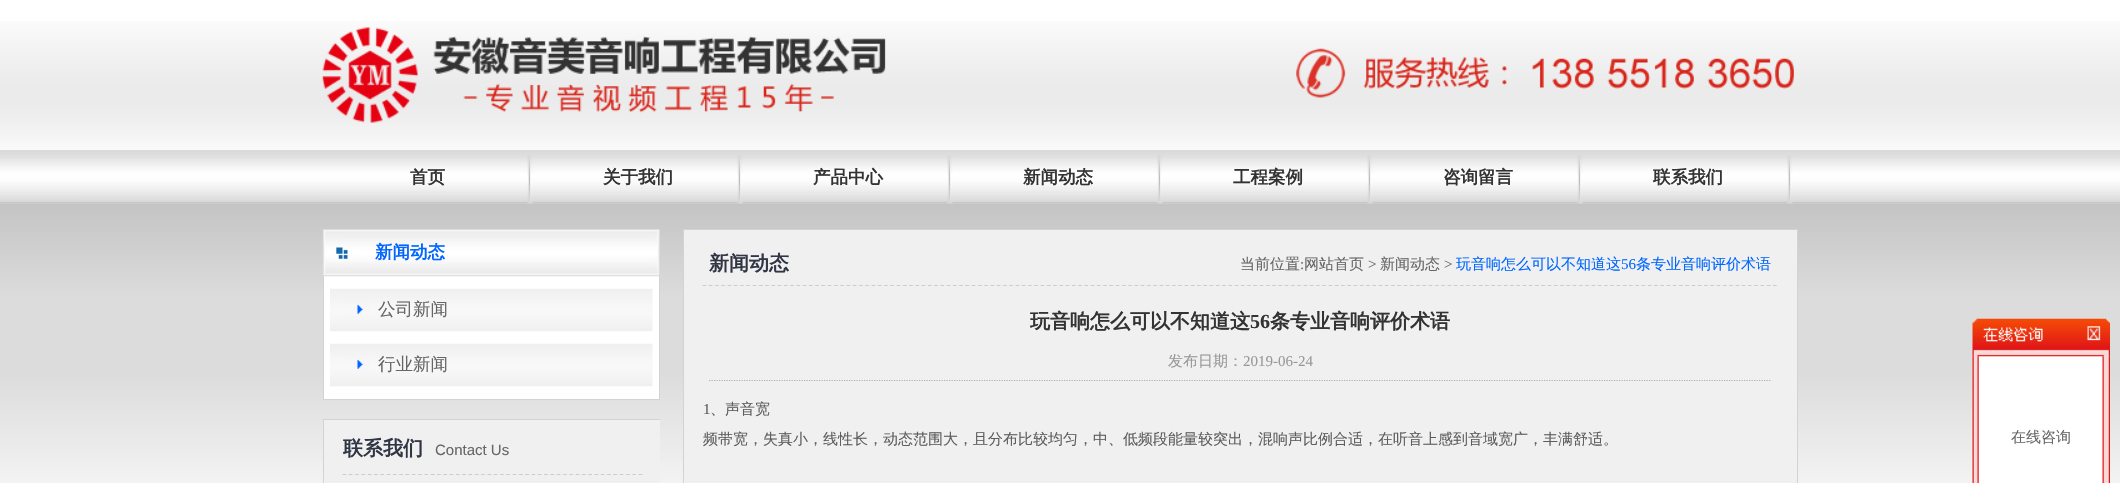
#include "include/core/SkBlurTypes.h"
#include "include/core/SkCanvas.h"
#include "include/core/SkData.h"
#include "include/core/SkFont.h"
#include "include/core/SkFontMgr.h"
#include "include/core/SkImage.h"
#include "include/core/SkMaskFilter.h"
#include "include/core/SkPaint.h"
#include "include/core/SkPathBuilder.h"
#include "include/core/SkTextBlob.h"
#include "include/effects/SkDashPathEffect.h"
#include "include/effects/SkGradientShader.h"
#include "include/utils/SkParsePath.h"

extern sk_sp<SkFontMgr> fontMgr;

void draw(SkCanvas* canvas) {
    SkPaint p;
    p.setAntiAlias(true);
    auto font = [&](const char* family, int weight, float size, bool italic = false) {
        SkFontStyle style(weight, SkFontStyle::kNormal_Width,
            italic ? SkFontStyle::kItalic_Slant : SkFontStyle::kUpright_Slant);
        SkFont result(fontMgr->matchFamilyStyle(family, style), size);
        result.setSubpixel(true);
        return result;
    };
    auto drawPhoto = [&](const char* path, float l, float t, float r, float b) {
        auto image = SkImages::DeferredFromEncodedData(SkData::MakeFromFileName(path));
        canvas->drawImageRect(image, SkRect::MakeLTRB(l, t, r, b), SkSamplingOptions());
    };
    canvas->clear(0xFFFFFFFF);
    drawPhoto("media/1.png", 0, 21, 2120, 150);
    drawPhoto("media/2.png", 322, 27, 886, 123);
    drawPhoto("media/3.png", 1296, 48, 1794, 98);
    drawPhoto("media/4.png", 0, 150, 2120, 204);
    drawPhoto("media/5.png", 527, 155, 533, 204);
    auto font1 = font("WenQuanYi Zen Hei", 700, 17.5f);
    p.setColor(0xFF333333);
    canvas->drawString("首页", 410, 183, font1, p);
    drawPhoto("media/5.png", 737, 155, 743, 204);
    canvas->drawString("关于我们", 603, 183, font1, p);
    drawPhoto("media/5.png", 947, 155, 953, 204);
    canvas->drawString("产品中心", 813, 183, font1, p);
    drawPhoto("media/5.png", 1157, 155, 1163, 204);
    canvas->drawString("新闻动态", 1023, 183, font1, p);
    drawPhoto("media/5.png", 1367, 155, 1373, 204);
    canvas->drawString("工程案例", 1233, 183, font1, p);
    drawPhoto("media/5.png", 1577, 155, 1583, 204);
    canvas->drawString("咨询留言", 1443, 183, font1, p);
    drawPhoto("media/5.png", 1787, 155, 1793, 204);
    canvas->drawString("联系我们", 1653, 183, font1, p);
    drawPhoto("media/6.png", 0, 204, 2120, 483);
    p.setColor(0xFFFFFFFF);
    canvas->drawRect(SkRect::MakeLTRB(324, 276, 659, 399), p);
    drawPhoto("media/7.png", 322, 229, 660, 277);
    p.setColor(0xFF0066FF);
    canvas->drawString("新闻动态", 375, 258, font1, p);
    {
        const struct { float l, t, r, b; SkColor color; } items[] = {
            {659, 276, 660, 400, 0xFFD3D3D3},
            {323, 399, 660, 400, 0xFFD3D3D3},
            {323, 276, 324, 400, 0xFFD3D3D3},
        };
        for (auto [l, t, r, b, color] : items) {
            p.setColor(color);
            canvas->drawRect(SkRect::MakeLTRB(l, t, r, b), p);
        }
    }
    drawPhoto("media/8.png", 330, 288, 653, 332);
    auto font2 = font("WenQuanYi Zen Hei", 500, 17.5f);
    p.setColor(0xFF666666);
    canvas->drawString("公司新闻", 378, 315, font2, p);
    drawPhoto("media/9.png", 330, 343, 653, 387);
    canvas->drawString("行业新闻", 378, 370, font2, p);
    p.setColor(0xFFF0F0F0);
    canvas->drawRect(SkRect::MakeLTRB(324, 420, 660, 483), p);
    canvas->save();
    canvas->clipRect(SkRect::MakeLTRB(323, 229, 660, 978));
    p.setStyle(SkPaint::kStroke_Style);
    p.setStrokeWidth(1);
    p.setColor(0xFFD3D3D3);
    canvas->drawRect(SkRect::MakeLTRB(323.5f, 419.5f, 662.5f, 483.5f), p);
    canvas->restore();
    p.setStrokeWidth(1.2f);
    p.setColor(0xFFCDCDCD);
    p.setPathEffect(SkDashPathEffect::Make({{3.75f, 2.55f}}, 0));
    canvas->drawPath(SkPathBuilder().moveTo(342.5f, 474.5f).lineTo(642.5f, 474.5f).detach(), p);
    p.setPathEffect(nullptr);
    canvas->save();
    canvas->clipRect(SkRect::MakeLTRB(343, 430, 643, 474));
    auto font3 = font("WenQuanYi Zen Hei", 700, 20);
    p.setStyle(SkPaint::kFill_Style);
    p.setColor(0xFF313645);
    canvas->drawString("联系我们", 343, 455, font3, p);
    canvas->restore();
    auto font4 = font("Liberation Sans", 400, 15);
    p.setColor(0xFF666666);
    canvas->drawString("Contact Us", 435, 455, font4, p);
    p.setColor(0xFFF0F0F0);
    canvas->drawRect(SkRect::MakeLTRB(683.5f, 229.5f, 1797.5f, 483.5f), p);
    p.setStyle(SkPaint::kStroke_Style);
    p.setStrokeWidth(1);
    p.setColor(0xFFD3D3D3);
    canvas->drawRect(SkRect::MakeLTRB(683.5f, 229.5f, 1797.5f, 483.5f), p);
    p.setStrokeWidth(1.2f);
    p.setColor(0xFFCDCDCD);
    p.setPathEffect(SkDashPathEffect::Make({{3.75f, 2.51f}}, 0));
    canvas->drawPath(SkPathBuilder().moveTo(702.5f, 285.5f).lineTo(1777.5f, 285.5f).detach(), p);
    p.setPathEffect(nullptr);
    p.setStyle(SkPaint::kFill_Style);
    p.setColor(0xFF313645);
    canvas->drawString("新闻动态", 709, 270, font3, p);
    auto font5 = font("WenQuanYi Zen Hei", 500, 15);
    p.setColor(0xFF666666);
    canvas->drawString("当前位置", 1240, 269, font5, p);
    auto font6 = font("Liberation Serif", 400, 15);
    canvas->drawString(":", 1300, 269, font6, p);
    canvas->drawString("网站首页", 1304, 269, font5, p);
    canvas->drawString(">", 1368, 269, font6, p);
    canvas->drawString("新闻动态", 1380, 269, font5, p);
    canvas->drawString(">", 1444, 269, font6, p);
    p.setColor(0xFF0066FF);
    canvas->drawString("玩音响怎么可以不知道这", 1456, 269, font5, p);
    canvas->drawString("56", 1621, 269, font6, p);
    canvas->drawString("条专业音响评价术语", 1636, 269, font5, p);
    p.setColor(0xFF333333);
    canvas->drawString("玩音响怎么可以不知道这", 1030, 328, font3, p);
    auto font7 = font("Liberation Serif", 700, 20);
    canvas->drawString("56", 1250, 328, font7, p);
    canvas->drawString("条专业音响评价术语", 1270, 328, font3, p);
    p.setStyle(SkPaint::kStroke_Style);
    p.setColor(0xFFAFAFAF);
    p.setPathEffect(SkDashPathEffect::Make({{1.25f, 1.25f}}, 0));
    canvas->drawPath(SkPathBuilder().moveTo(709, 380.5f).lineTo(1771, 380.5f).detach(), p);
    p.setPathEffect(nullptr);
    p.setStyle(SkPaint::kFill_Style);
    p.setColor(0xFF999999);
    canvas->drawString("发布日期：", 1168, 366, font5, p);
    canvas->drawString("2019-06-24", 1243, 366, font6, p);
    p.setColor(0xFF5D5D5D);
    canvas->drawString("1", 703, 414, font6, p);
    canvas->drawString("、声音宽", 710, 414, font5, p);
    canvas->save();
    canvas->clipRect(SkRect::MakeLTRB(703, 381, 1778, 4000));
    canvas->drawString("频带宽，失真小，线性长，动态范围大，且分布比较均匀，中、低频段能量较突出，混响声比例合适，在听音上感到音域宽广，丰满舒适。", 703, 444, font5, p);
    canvas->restore();
    drawPhoto("media/11.png", 1972, 356, 2110, 483);
    drawPhoto("media/10.png", 1972, 318, 2110, 357);
    p.setColor(0xFF666666);
    canvas->drawString("在线咨询", 2011, 442, font5, p);
}
